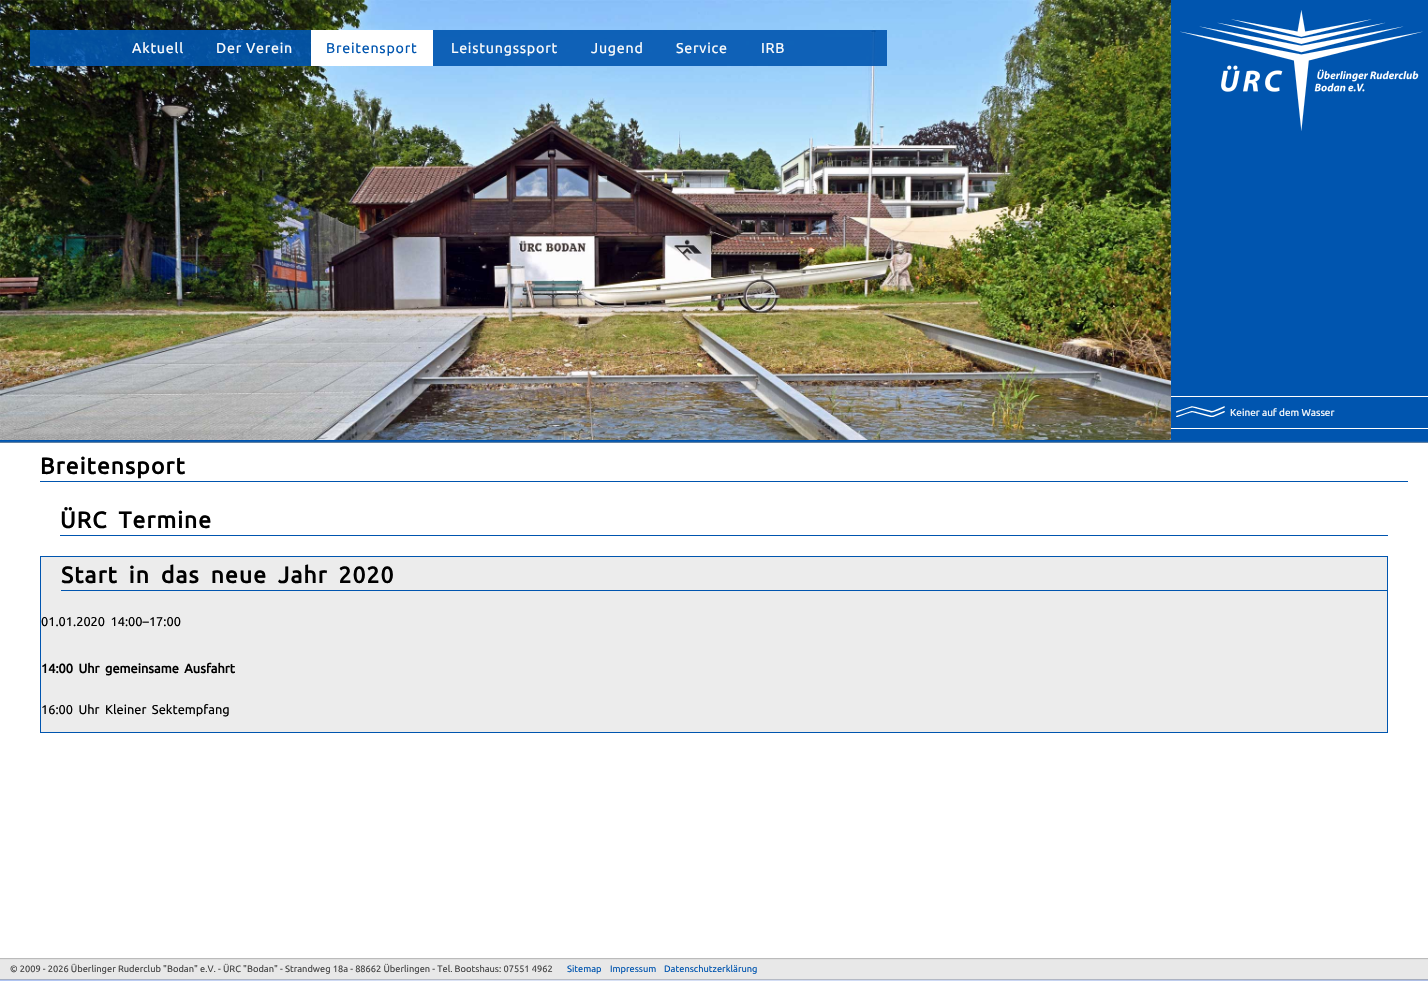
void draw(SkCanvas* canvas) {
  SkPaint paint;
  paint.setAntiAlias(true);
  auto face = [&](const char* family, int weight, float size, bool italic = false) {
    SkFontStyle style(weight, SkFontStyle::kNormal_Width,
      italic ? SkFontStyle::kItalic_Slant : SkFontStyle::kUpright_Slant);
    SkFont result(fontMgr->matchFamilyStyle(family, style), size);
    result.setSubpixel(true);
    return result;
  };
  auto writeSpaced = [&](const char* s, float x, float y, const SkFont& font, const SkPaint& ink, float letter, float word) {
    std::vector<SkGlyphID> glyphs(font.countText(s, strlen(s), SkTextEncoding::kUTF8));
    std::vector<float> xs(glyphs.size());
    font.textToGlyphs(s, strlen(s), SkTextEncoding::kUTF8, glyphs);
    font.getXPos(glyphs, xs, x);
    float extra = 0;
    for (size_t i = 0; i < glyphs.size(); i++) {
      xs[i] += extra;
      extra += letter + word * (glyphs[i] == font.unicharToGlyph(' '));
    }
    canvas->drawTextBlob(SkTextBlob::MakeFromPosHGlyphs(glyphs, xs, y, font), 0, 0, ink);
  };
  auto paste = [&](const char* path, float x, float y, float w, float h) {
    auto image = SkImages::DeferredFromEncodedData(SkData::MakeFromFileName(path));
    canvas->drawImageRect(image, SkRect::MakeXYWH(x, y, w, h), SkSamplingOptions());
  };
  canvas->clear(0xffffffff);
  {
    const SkColor colors[] = {0xffb0c7fc, 0xffe4ecff, 0xffd4e1ff, 0xffafc1ec};
    const float stops[] = {0, 0.33f, 0.67f, 1};
    const SkPoint ends[] = {{0, 490}, {1428, 489}};
    paint.setShader(SkGradientShader::MakeLinear(ends, colors, stops, 4, SkTileMode::kClamp));
    paint.setAlpha(255);
  }
  canvas->drawRect(SkRect::MakeXYWH(0, 979, 1428, 2), paint);
  paint.setShader(nullptr);
  paint.setColor(0xff0055af);
  canvas->drawRect(SkRect::MakeXYWH(0, 0, 1428, 443), paint);
  paste("img/1.png", 0, 0, 1171, 440);
  paste("img/2.png", 1180, 10, 243, 121);
  {
    const struct { float x, y, w, h; SkColor color; } items[] = {
      {30, 30, 857, 36, 0xe60055af},
      {311, 30, 122, 36, 0xffffffff},
      {1171, 396, 257, 1, 0xffffffff},
      {1171, 428, 257, 1, 0xffffffff},
    };
    for (auto [x, y, w, h, color] : items) {
      paint.setColor(color);
      canvas->drawRect(SkRect::MakeXYWH(x, y, w, h), paint);
    }
  }
  paste("img/3.png", 1176, 406, 49, 11);
  paint.setColor(0x999c9c9c);
  paint.setMaskFilter(SkMaskFilter::MakeBlur(kNormal_SkBlurStyle, 0.5f));
  canvas->drawRect(SkRect::MakeXYWH(-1, 957, 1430, 23), paint);
  paint.setMaskFilter(nullptr);
  paint.setColor(0xffe8e8e8);
  canvas->drawRect(SkRect::MakeXYWH(0, 958, 1428, 21), paint);
  paint.setColor(0x999c9c9c);
  paint.setMaskFilter(SkMaskFilter::MakeBlur(kNormal_SkBlurStyle, 0.5f));
  canvas->drawRect(SkRect::MakeXYWH(-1, 442, 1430, 517), paint);
  paint.setMaskFilter(nullptr);
  {
    const struct { float x, y, w, h; SkColor color; } items[] = {
      {0, 443, 1428, 515, 0xffffffff},
      {40, 481, 1368, 1, 0xff0055af},
      {60, 535, 1328, 1, 0xff0055af},
    };
    for (auto [x, y, w, h, color] : items) {
      paint.setColor(color);
      canvas->drawRect(SkRect::MakeXYWH(x, y, w, h), paint);
    }
  }
  paint.setColor(0xffececec);
  canvas->drawRect(SkRect::MakeXYWH(40.5f, 556.5f, 1347, 176), paint);
  paint.setStroke(true);
  paint.setStrokeWidth(1);
  paint.setColor(0xff0055af);
  canvas->drawRect(SkRect::MakeXYWH(40.5f, 556.5f, 1347, 176), paint);
  paint.setStroke(false);
  canvas->drawRect(SkRect::MakeXYWH(61, 590, 1326, 1), paint);
  auto f0 = face("Ubuntu", 400, 14.25f);
  paint.setColor(0xfffcfcfc);
  writeSpaced("Aktuell", 132, 53, f0, paint, 0.75f, 0);
  writeSpaced("Der Verein", 216, 53, f0, paint, 0.75f, 0);
  paint.setColor(0xff0055af);
  writeSpaced("Breitensport", 326, 53, f0, paint, 0.75f, 0);
  paint.setColor(0xfffcfcfc);
  {
    const struct { const char* s; float x, y; } items[] = {
      {"Leistungssport", 451, 53},
      {"Jugend", 591, 53},
      {"Service", 676, 53},
      {"IRB", 761, 53},
    };
    for (auto [s, x, y] : items) {
      writeSpaced(s, x, y, f0, paint, 0.75f, 0);
    }
  }
  auto f1 = face("Ubuntu", 400, 10);
  canvas->drawString("Keiner auf dem Wasser", 1230, 416, f1, paint);
  auto f2 = face("Ubuntu", 700, 22.8f);
  paint.setColor(0xff000000);
  writeSpaced("Breitensport", 40, 474, f2, paint, 1.15f, 0);
  writeSpaced("ÜRC Termine", 60, 528, f2, paint, 1.15f, 4.5f);
  writeSpaced("Start in das neue Jahr 2020", 61, 583, f2, paint, 1.15f, 4.5f);
  auto f3 = face("Ubuntu", 400, 12.8f);
  writeSpaced("01.01.2020 14:00–17:00", 41, 626, f3, paint, 0, 2.5f);
  auto f4 = face("Ubuntu", 700, 12.8f);
  writeSpaced("14:00 Uhr gemeinsame Ausfahrt", 41, 673, f4, paint, 0, 2.5f);
  writeSpaced("16:00 Uhr Kleiner Sektempfang", 41, 714, f3, paint, 0, 2.5f);
  auto f5 = face("Ubuntu", 400, 9.28f);
  paint.setColor(0xff474747);
  canvas->drawString("© 2009 - 2026 Überlinger Ruderclub \"Bodan\" e.V. - ÜRC \"Bodan\" - Strandweg 18a - 88662 Überlingen - Tel. Bootshaus: 07551 4962", 10, 972, f5, paint);
  paint.setColor(0xff0055af);
  {
    const struct { const char* s; float x, y; } items[] = {
      {"Sitemap", 567, 972},
      {"Impressum", 610, 972},
      {"Datenschutzerklärung", 664, 972},
    };
    for (auto [s, x, y] : items) {
      canvas->drawString(s, x, y, f5, paint);
    }
  }
}
